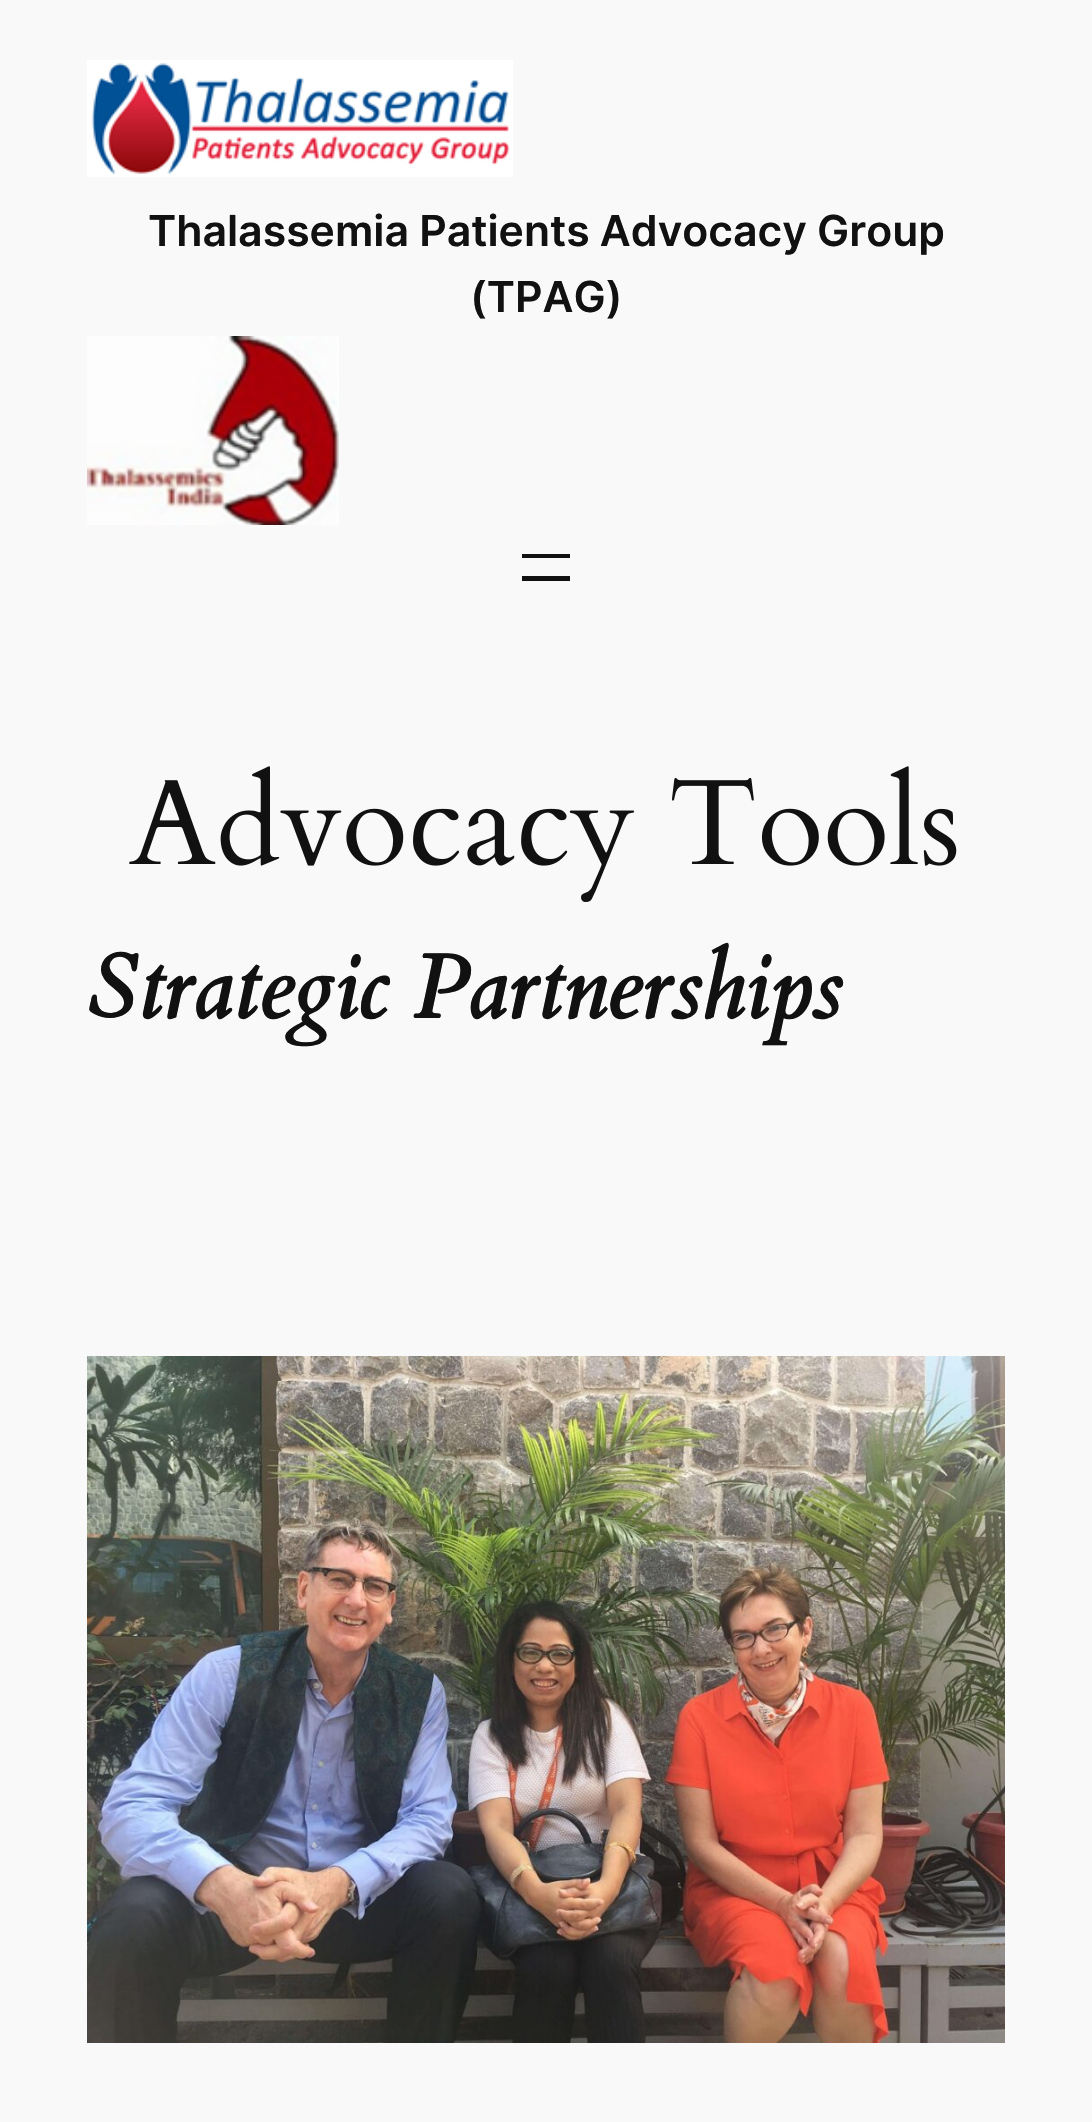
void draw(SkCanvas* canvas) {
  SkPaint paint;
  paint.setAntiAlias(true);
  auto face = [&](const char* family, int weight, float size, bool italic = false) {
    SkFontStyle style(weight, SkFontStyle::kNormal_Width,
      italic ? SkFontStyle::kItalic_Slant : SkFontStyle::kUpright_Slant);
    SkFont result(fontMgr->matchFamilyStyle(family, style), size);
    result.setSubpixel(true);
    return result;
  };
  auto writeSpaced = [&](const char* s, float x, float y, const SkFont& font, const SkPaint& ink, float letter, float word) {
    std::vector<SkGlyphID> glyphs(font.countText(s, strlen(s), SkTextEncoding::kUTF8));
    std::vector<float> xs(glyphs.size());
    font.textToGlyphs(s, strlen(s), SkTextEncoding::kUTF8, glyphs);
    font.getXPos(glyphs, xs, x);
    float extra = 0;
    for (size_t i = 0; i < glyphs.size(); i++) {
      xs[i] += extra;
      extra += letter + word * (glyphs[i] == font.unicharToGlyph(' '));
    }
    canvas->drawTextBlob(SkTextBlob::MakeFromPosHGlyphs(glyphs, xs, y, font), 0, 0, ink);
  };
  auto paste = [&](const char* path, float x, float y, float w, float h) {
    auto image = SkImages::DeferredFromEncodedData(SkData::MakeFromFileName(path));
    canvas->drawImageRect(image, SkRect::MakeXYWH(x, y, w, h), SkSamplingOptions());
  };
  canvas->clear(0xfff9f9f9);
  paste("img/1.png", 87, 60, 426, 117);
  paste("img/2.png", 87, 336, 252, 189);
  paint.setColor(0xff111111);
  canvas->drawRect(SkRect::MakeXYWH(522, 554, 48, 4), paint);
  canvas->drawRect(SkRect::MakeXYWH(522, 576, 48, 5), paint);
  paste("img/3.png", 129, 766, 828, 136);
  paste("img/4.png", 87, 1356, 918, 687);
  auto f0 = face("Inter", 600, 42.75f);
  writeSpaced("Thalassemia Patients Advocacy Group", 148, 246, f0, paint, 0, -0.5f);
  canvas->drawString("(TPAG)", 470, 312, f0, paint);
  auto f1 = face("Cardo", 700, 90.25f, true);
  canvas->drawString("Strategic Partnerships", 87, 1018, f1, paint);
}
